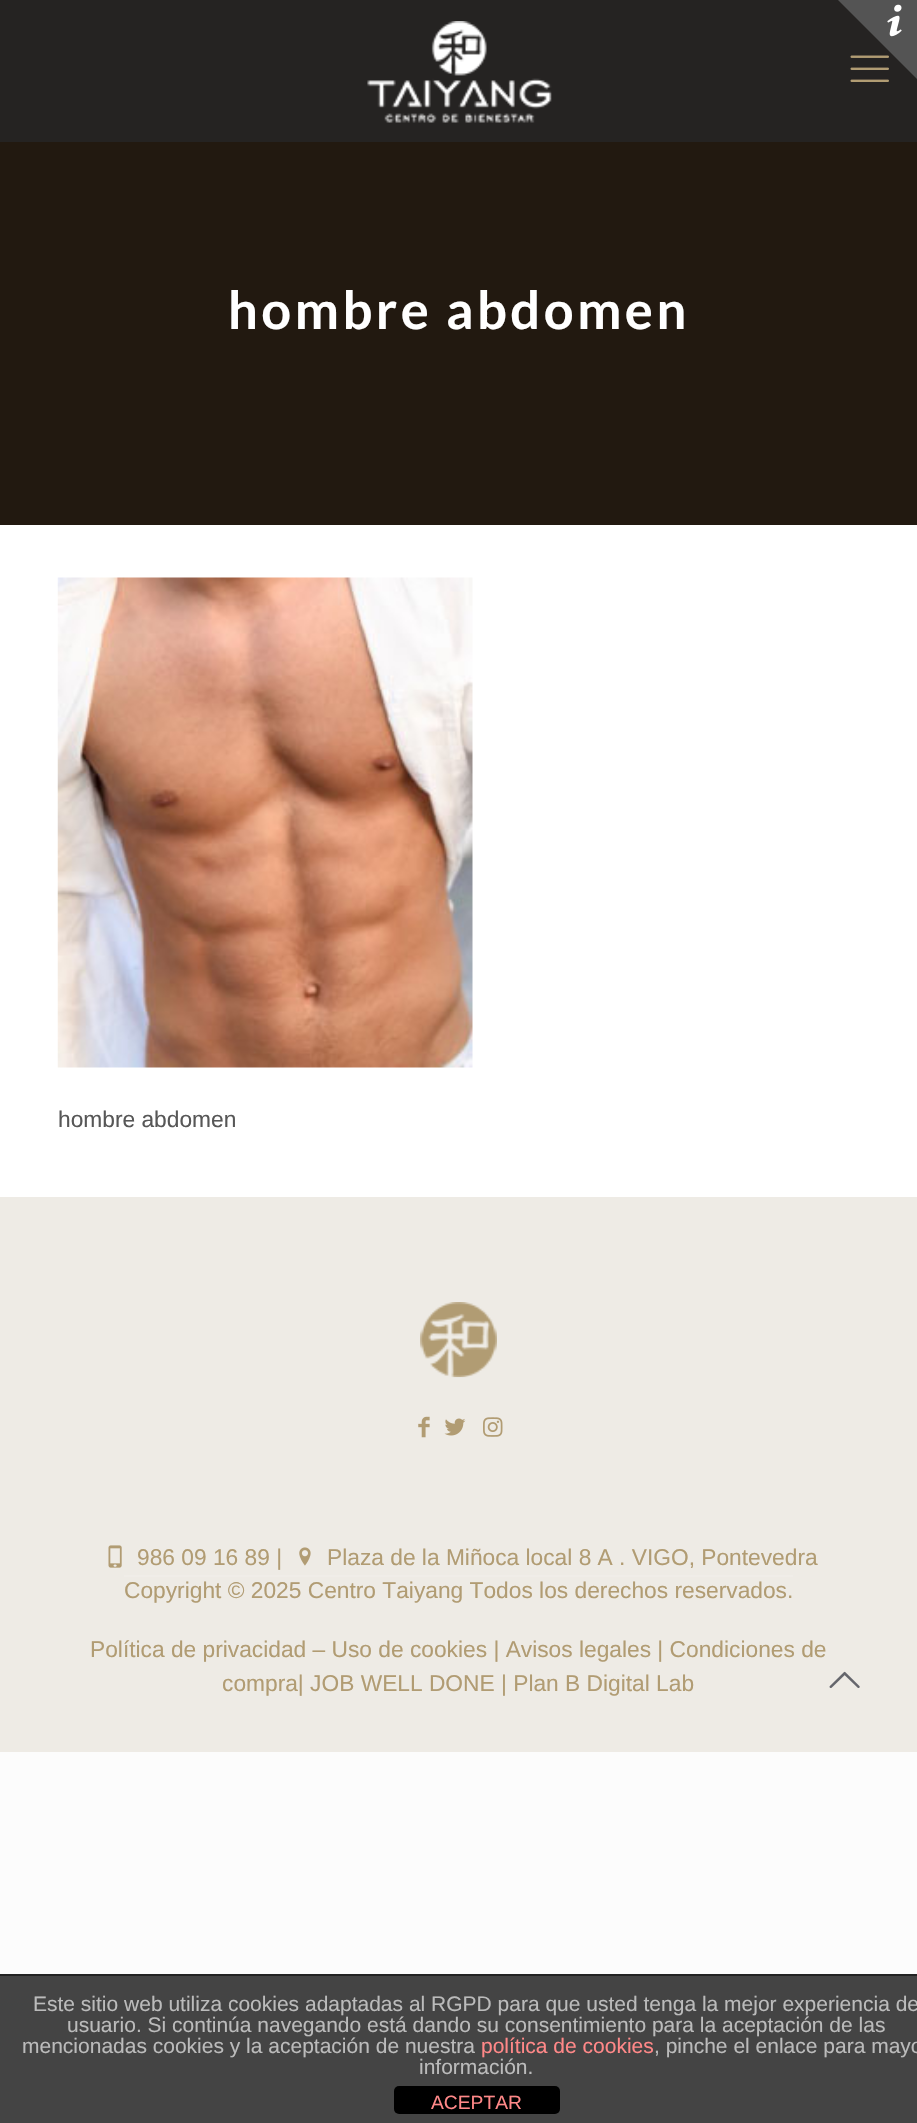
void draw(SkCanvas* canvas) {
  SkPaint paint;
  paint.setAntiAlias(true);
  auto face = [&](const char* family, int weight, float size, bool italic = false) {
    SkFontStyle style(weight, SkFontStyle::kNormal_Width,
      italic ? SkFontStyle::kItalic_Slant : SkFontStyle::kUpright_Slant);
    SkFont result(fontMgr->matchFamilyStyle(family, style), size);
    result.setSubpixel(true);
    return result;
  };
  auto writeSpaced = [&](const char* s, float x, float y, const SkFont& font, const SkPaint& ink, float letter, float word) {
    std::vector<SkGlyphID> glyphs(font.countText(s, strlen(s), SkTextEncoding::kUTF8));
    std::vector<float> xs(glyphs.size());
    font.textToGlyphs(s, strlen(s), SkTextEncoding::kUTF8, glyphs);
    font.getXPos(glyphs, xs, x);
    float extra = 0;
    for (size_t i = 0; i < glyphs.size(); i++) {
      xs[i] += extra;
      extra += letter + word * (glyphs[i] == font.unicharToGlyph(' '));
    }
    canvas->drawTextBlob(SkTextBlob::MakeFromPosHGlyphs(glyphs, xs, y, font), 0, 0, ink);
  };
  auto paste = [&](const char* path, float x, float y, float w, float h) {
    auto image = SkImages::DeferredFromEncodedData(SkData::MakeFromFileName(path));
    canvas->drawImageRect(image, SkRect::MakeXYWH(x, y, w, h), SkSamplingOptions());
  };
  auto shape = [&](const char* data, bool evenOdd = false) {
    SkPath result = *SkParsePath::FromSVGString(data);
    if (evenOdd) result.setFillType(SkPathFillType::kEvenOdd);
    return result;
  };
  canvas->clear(0xfffcfcfc);
  paint.setColor(0xff252322);
  canvas->drawRect(SkRect::MakeXYWH(0, 0, 917, 142), paint);
  paste("img/3.png", 850, 55, 39, 27);
  paint.setColor(0xff545454);
  canvas->drawPath(shape("M917 0V79L838 0Z"), paint);
  paste("img/1.png", 887, 4, 15, 33);
  paint.setColor(0xffffffff);
  canvas->drawRect(SkRect::MakeXYWH(0, 525, 917, 672), paint);
  paint.setColor(0xff221910);
  canvas->drawRect(SkRect::MakeXYWH(0, 142, 917, 383), paint);
  paste("img/2.png", 367, 21, 185, 102);
  paste("img/4.png", 57, 577, 416, 491);
  paint.setColor(0xffeeebe5);
  canvas->drawRect(SkRect::MakeXYWH(0, 1197, 917, 555), paint);
  paste("img/5.png", 420, 1302, 77, 76);
  paste("img/6.png", 418, 1416, 12, 22);
  paste("img/7.png", 444, 1418, 22, 18);
  paste("img/8.png", 483, 1417, 20, 20);
  paste("img/9.png", 108, 1545, 14, 23);
  paste("img/10.png", 299, 1547, 12, 19);
  paint.setColor(0xfff0ede8);
  canvas->drawRect(SkRect::MakeXYWH(124, 1575, 669, 2), paint);
  paste("img/11.png", 829, 1671, 31, 17);
  paint.setColor(0xff444444);
  canvas->drawRect(SkRect::MakeXYWH(0, 1976, 917, 147), paint);
  paint.setColor(0xff222222);
  canvas->drawRect(SkRect::MakeXYWH(0, 1974, 917, 2), paint);
  paint.setColor(0xff000000);
  canvas->drawRoundRect(SkRect::MakeXYWH(394, 2086, 166, 28), 5, 5, paint);
  auto f0 = face("Lato", 700, 52.5f);
  paint.setColor(0xffffffff);
  writeSpaced("hombre abdomen", 228, 329, f0, paint, 3.5f, 0);
  auto f1 = face("Liberation Sans", 400, 22.75f);
  paint.setColor(0xff575757);
  canvas->drawString("hombre abdomen", 58, 1127, f1, paint);
  paint.setColor(0xffb19c73);
  {
    const struct { const char* s; float x, y; } items[] = {
      {"986 09 16 89 |", 137, 1565},
      {"Plaza de la Miñoca local 8 A . VIGO, Pontevedra", 327, 1565},
      {"Copyright © 2025 Centro Taiyang Todos los derechos reservados.", 124, 1598},
      {"Política de privacidad – Uso de cookies | Avisos legales | Condiciones de", 90, 1657},
      {"compra| JOB WELL DONE | Plan B Digital Lab", 222, 1691},
    };
    for (auto [s, x, y] : items) {
      canvas->drawString(s, x, y, f1, paint);
    }
  }
  auto f2 = face("Liberation Sans", 400, 21);
  paint.setColor(0xffbbbbbb);
  {
    const struct { const char* s; float x, y; } items[] = {
      {"Este sitio web utiliza cookies adaptadas al RGPD para que usted tenga la mejor experiencia de", 33, 2011},
      {"usuario. Si continúa navegando está dando su consentimiento para la aceptación de las", 67, 2032},
      {"mencionadas cookies y la aceptación de nuestra", 22, 2053},
    };
    for (auto [s, x, y] : items) {
      canvas->drawString(s, x, y, f2, paint);
    }
  }
  paint.setColor(0xffff8888);
  canvas->drawString("política de cookies", 481, 2053, f2, paint);
  paint.setColor(0xffbbbbbb);
  canvas->drawString(", pinche el enlace para mayo", 654, 2053, f2, paint);
  canvas->drawString("información.", 419, 2074, f2, paint);
  auto f3 = face("Liberation Sans", 400, 19.25f);
  paint.setColor(0xffff8888);
  canvas->drawString("ACEPTAR", 431, 2109, f3, paint);
}
